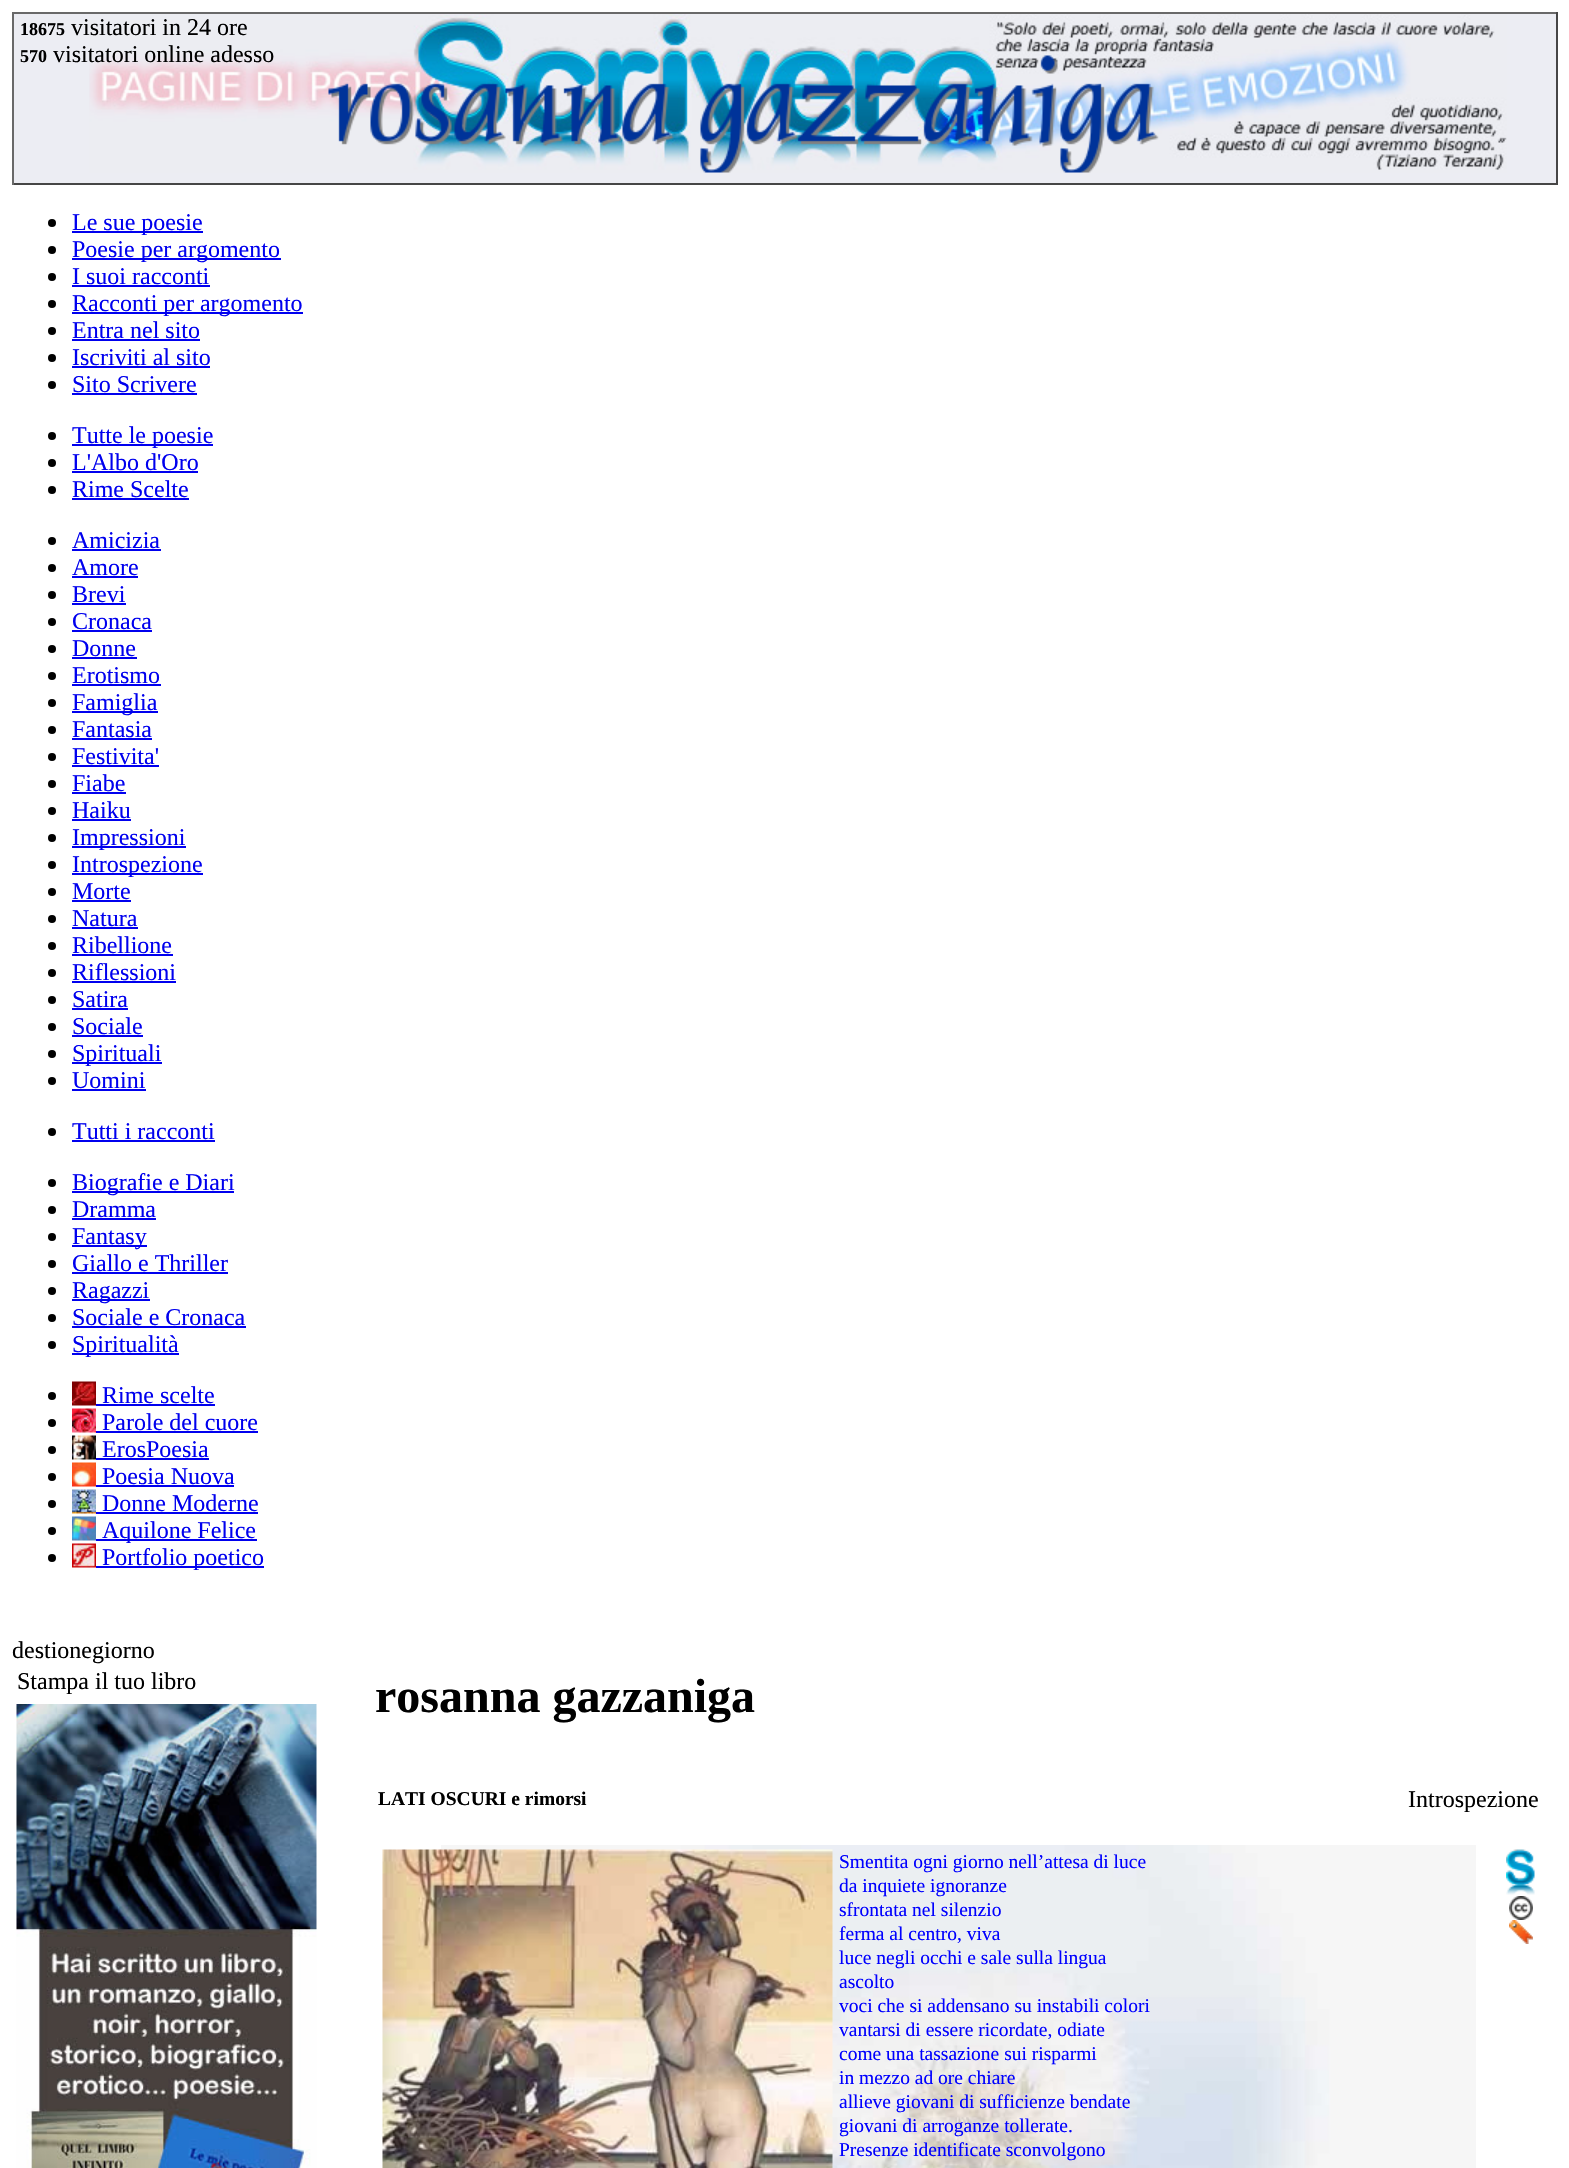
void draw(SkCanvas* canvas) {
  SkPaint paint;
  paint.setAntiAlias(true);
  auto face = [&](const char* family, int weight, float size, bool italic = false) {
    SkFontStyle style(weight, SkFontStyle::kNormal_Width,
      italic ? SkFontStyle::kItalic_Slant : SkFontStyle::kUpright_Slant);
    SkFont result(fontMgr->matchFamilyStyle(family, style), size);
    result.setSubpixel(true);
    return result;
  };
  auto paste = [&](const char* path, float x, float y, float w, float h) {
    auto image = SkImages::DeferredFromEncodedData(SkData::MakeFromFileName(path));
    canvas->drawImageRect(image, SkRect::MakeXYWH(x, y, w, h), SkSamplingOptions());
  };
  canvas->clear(0xffffffff);
  paint.setColor(0xffecedf3);
  canvas->drawRect(SkRect::MakeXYWH(14, 14, 1542, 169), paint);
  paste("img/1.png", 89, 14, 1418, 159);
  {
    const struct { float x, y, w, h; SkColor color; } items[] = {
      {12, 12, 1545, 2, 0xff696969},
      {1556, 12, 2, 173, 0xff464646},
      {12, 183, 1545, 2, 0xff464646},
      {12, 12, 2, 173, 0xff696969},
    };
    for (auto [x, y, w, h, color] : items) {
      paint.setColor(color);
      canvas->drawRect(SkRect::MakeXYWH(x, y, w, h), paint);
    }
  }
  paint.setColor(0xff000000);
  canvas->drawCircle(52, 223, 4, paint);
  paint.setColor(0xff0000ee);
  canvas->drawRect(SkRect::MakeXYWH(72, 231, 131, 2), paint);
  paint.setColor(0xff000000);
  canvas->drawCircle(52, 250, 4, paint);
  paint.setColor(0xff0000ee);
  canvas->drawRect(SkRect::MakeXYWH(72, 258, 209, 2), paint);
  paint.setColor(0xff000000);
  canvas->drawCircle(52, 277, 4, paint);
  paint.setColor(0xff0000ee);
  canvas->drawRect(SkRect::MakeXYWH(72, 285, 138, 2), paint);
  paint.setColor(0xff000000);
  canvas->drawCircle(52, 304, 4, paint);
  paint.setColor(0xff0000ee);
  canvas->drawRect(SkRect::MakeXYWH(72, 312, 231, 2), paint);
  paint.setColor(0xff000000);
  canvas->drawCircle(52, 331, 4, paint);
  paint.setColor(0xff0000ee);
  canvas->drawRect(SkRect::MakeXYWH(72, 339, 128, 2), paint);
  paint.setColor(0xff000000);
  canvas->drawCircle(52, 358, 4, paint);
  paint.setColor(0xff0000ee);
  canvas->drawRect(SkRect::MakeXYWH(72, 366, 138, 2), paint);
  paint.setColor(0xff000000);
  canvas->drawCircle(52, 385, 4, paint);
  paint.setColor(0xff0000ee);
  canvas->drawRect(SkRect::MakeXYWH(72, 393, 125, 2), paint);
  paint.setColor(0xff000000);
  canvas->drawCircle(52, 436, 4, paint);
  paint.setColor(0xff0000ee);
  canvas->drawRect(SkRect::MakeXYWH(72, 444, 141, 2), paint);
  paint.setColor(0xff000000);
  canvas->drawCircle(52, 463, 4, paint);
  paint.setColor(0xff0000ee);
  canvas->drawRect(SkRect::MakeXYWH(72, 471, 126, 2), paint);
  paint.setColor(0xff000000);
  canvas->drawCircle(52, 490, 4, paint);
  paint.setColor(0xff0000ee);
  canvas->drawRect(SkRect::MakeXYWH(72, 498, 117, 2), paint);
  paint.setColor(0xff000000);
  canvas->drawCircle(52, 541, 4, paint);
  paint.setColor(0xff0000ee);
  canvas->drawRect(SkRect::MakeXYWH(72, 549, 89, 2), paint);
  paint.setColor(0xff000000);
  canvas->drawCircle(52, 568, 4, paint);
  paint.setColor(0xff0000ee);
  canvas->drawRect(SkRect::MakeXYWH(72, 576, 66, 2), paint);
  paint.setColor(0xff000000);
  canvas->drawCircle(52, 595, 4, paint);
  paint.setColor(0xff0000ee);
  canvas->drawRect(SkRect::MakeXYWH(72, 603, 54, 2), paint);
  paint.setColor(0xff000000);
  canvas->drawCircle(52, 622, 4, paint);
  paint.setColor(0xff0000ee);
  canvas->drawRect(SkRect::MakeXYWH(72, 630, 80, 2), paint);
  paint.setColor(0xff000000);
  canvas->drawCircle(52, 649, 4, paint);
  paint.setColor(0xff0000ee);
  canvas->drawRect(SkRect::MakeXYWH(72, 657, 65, 2), paint);
  paint.setColor(0xff000000);
  canvas->drawCircle(52, 676, 4, paint);
  paint.setColor(0xff0000ee);
  canvas->drawRect(SkRect::MakeXYWH(72, 684, 89, 2), paint);
  paint.setColor(0xff000000);
  canvas->drawCircle(52, 703, 4, paint);
  paint.setColor(0xff0000ee);
  canvas->drawRect(SkRect::MakeXYWH(72, 711, 86, 2), paint);
  paint.setColor(0xff000000);
  canvas->drawCircle(52, 730, 4, paint);
  paint.setColor(0xff0000ee);
  canvas->drawRect(SkRect::MakeXYWH(72, 738, 80, 2), paint);
  paint.setColor(0xff000000);
  canvas->drawCircle(52, 757, 4, paint);
  paint.setColor(0xff0000ee);
  canvas->drawRect(SkRect::MakeXYWH(72, 765, 87, 2), paint);
  paint.setColor(0xff000000);
  canvas->drawCircle(52, 784, 4, paint);
  paint.setColor(0xff0000ee);
  canvas->drawRect(SkRect::MakeXYWH(72, 792, 54, 2), paint);
  paint.setColor(0xff000000);
  canvas->drawCircle(52, 811, 4, paint);
  paint.setColor(0xff0000ee);
  canvas->drawRect(SkRect::MakeXYWH(72, 819, 59, 2), paint);
  paint.setColor(0xff000000);
  canvas->drawCircle(52, 838, 4, paint);
  paint.setColor(0xff0000ee);
  canvas->drawRect(SkRect::MakeXYWH(72, 846, 114, 2), paint);
  paint.setColor(0xff000000);
  canvas->drawCircle(52, 865, 4, paint);
  paint.setColor(0xff0000ee);
  canvas->drawRect(SkRect::MakeXYWH(72, 873, 131, 2), paint);
  paint.setColor(0xff000000);
  canvas->drawCircle(52, 892, 4, paint);
  paint.setColor(0xff0000ee);
  canvas->drawRect(SkRect::MakeXYWH(72, 900, 59, 2), paint);
  paint.setColor(0xff000000);
  canvas->drawCircle(52, 919, 4, paint);
  paint.setColor(0xff0000ee);
  canvas->drawRect(SkRect::MakeXYWH(72, 927, 66, 2), paint);
  paint.setColor(0xff000000);
  canvas->drawCircle(52, 946, 4, paint);
  paint.setColor(0xff0000ee);
  canvas->drawRect(SkRect::MakeXYWH(72, 954, 101, 2), paint);
  paint.setColor(0xff000000);
  canvas->drawCircle(52, 973, 4, paint);
  paint.setColor(0xff0000ee);
  canvas->drawRect(SkRect::MakeXYWH(72, 981, 104, 2), paint);
  paint.setColor(0xff000000);
  canvas->drawCircle(52, 1000, 4, paint);
  paint.setColor(0xff0000ee);
  canvas->drawRect(SkRect::MakeXYWH(72, 1008, 56, 2), paint);
  paint.setColor(0xff000000);
  canvas->drawCircle(52, 1027, 4, paint);
  paint.setColor(0xff0000ee);
  canvas->drawRect(SkRect::MakeXYWH(72, 1035, 71, 2), paint);
  paint.setColor(0xff000000);
  canvas->drawCircle(52, 1054, 4, paint);
  paint.setColor(0xff0000ee);
  canvas->drawRect(SkRect::MakeXYWH(72, 1062, 90, 2), paint);
  paint.setColor(0xff000000);
  canvas->drawCircle(52, 1081, 4, paint);
  paint.setColor(0xff0000ee);
  canvas->drawRect(SkRect::MakeXYWH(72, 1089, 74, 2), paint);
  paint.setColor(0xff000000);
  canvas->drawCircle(52, 1132, 4, paint);
  paint.setColor(0xff0000ee);
  canvas->drawRect(SkRect::MakeXYWH(72, 1140, 143, 2), paint);
  paint.setColor(0xff000000);
  canvas->drawCircle(52, 1183, 4, paint);
  paint.setColor(0xff0000ee);
  canvas->drawRect(SkRect::MakeXYWH(72, 1191, 162, 2), paint);
  paint.setColor(0xff000000);
  canvas->drawCircle(52, 1210, 4, paint);
  paint.setColor(0xff0000ee);
  canvas->drawRect(SkRect::MakeXYWH(72, 1218, 84, 2), paint);
  paint.setColor(0xff000000);
  canvas->drawCircle(52, 1237, 4, paint);
  paint.setColor(0xff0000ee);
  canvas->drawRect(SkRect::MakeXYWH(72, 1245, 75, 2), paint);
  paint.setColor(0xff000000);
  canvas->drawCircle(52, 1264, 4, paint);
  paint.setColor(0xff0000ee);
  canvas->drawRect(SkRect::MakeXYWH(72, 1272, 156, 2), paint);
  paint.setColor(0xff000000);
  canvas->drawCircle(52, 1291, 4, paint);
  paint.setColor(0xff0000ee);
  canvas->drawRect(SkRect::MakeXYWH(72, 1299, 78, 2), paint);
  paint.setColor(0xff000000);
  canvas->drawCircle(52, 1318, 4, paint);
  paint.setColor(0xff0000ee);
  canvas->drawRect(SkRect::MakeXYWH(72, 1326, 174, 2), paint);
  paint.setColor(0xff000000);
  canvas->drawCircle(52, 1345, 4, paint);
  paint.setColor(0xff0000ee);
  canvas->drawRect(SkRect::MakeXYWH(72, 1353, 107, 2), paint);
  paint.setColor(0xff000000);
  canvas->drawCircle(52, 1396, 4, paint);
  paste("img/2.png", 72, 1381, 24, 25);
  paint.setColor(0xff0000ee);
  canvas->drawRect(SkRect::MakeXYWH(96, 1404, 119, 2), paint);
  paint.setColor(0xff000000);
  canvas->drawCircle(52, 1423, 4, paint);
  paste("img/3.png", 72, 1408, 24, 25);
  paint.setColor(0xff0000ee);
  canvas->drawRect(SkRect::MakeXYWH(96, 1431, 162, 2), paint);
  paint.setColor(0xff000000);
  canvas->drawCircle(52, 1450, 4, paint);
  paste("img/4.png", 72, 1435, 24, 25);
  paint.setColor(0xff0000ee);
  canvas->drawRect(SkRect::MakeXYWH(96, 1458, 113, 2), paint);
  paint.setColor(0xff000000);
  canvas->drawCircle(52, 1477, 4, paint);
  paste("img/5.png", 72, 1462, 24, 25);
  paint.setColor(0xff0000ee);
  canvas->drawRect(SkRect::MakeXYWH(96, 1485, 138, 2), paint);
  paint.setColor(0xff000000);
  canvas->drawCircle(52, 1504, 4, paint);
  paste("img/6.png", 72, 1489, 24, 25);
  paint.setColor(0xff0000ee);
  canvas->drawRect(SkRect::MakeXYWH(96, 1512, 162, 2), paint);
  paint.setColor(0xff000000);
  canvas->drawCircle(52, 1531, 4, paint);
  paste("img/7.png", 72, 1516, 24, 25);
  paint.setColor(0xff0000ee);
  canvas->drawRect(SkRect::MakeXYWH(96, 1539, 161, 2), paint);
  paint.setColor(0xff000000);
  canvas->drawCircle(52, 1558, 4, paint);
  paste("img/8.png", 72, 1543, 24, 25);
  paint.setColor(0xff0000ee);
  canvas->drawRect(SkRect::MakeXYWH(96, 1566, 168, 2), paint);
  paste("img/9.png", 16, 1704, 301, 464);
  paste("img/10.png", 441, 1845, 1035, 323);
  paste("img/11.png", 382, 1849, 451, 319);
  paste("img/12.png", 1506, 1849, 29, 46);
  paste("img/13.png", 1509, 1896, 24, 24);
  paste("img/14.png", 1509, 1920, 24, 24);
  auto f0 = face("Liberation Serif", 700, 18);
  paint.setColor(0xff000000);
  canvas->drawString("18675", 20, 35, f0, paint);
  auto f1 = face("Liberation Serif", 400, 24);
  canvas->drawString("visitatori in 24 ore", 71, 35, f1, paint);
  canvas->drawString("570", 20, 62, f0, paint);
  canvas->drawString("visitatori online adesso", 53, 62, f1, paint);
  paint.setColor(0xff0000ee);
  {
    const struct { const char* s; float x, y; } items[] = {
      {"Le sue poesie", 72, 230},
      {"Poesie per argomento", 72, 257},
      {"I suoi racconti", 72, 284},
      {"Racconti per argomento", 72, 311},
      {"Entra nel sito", 72, 338},
      {"Iscriviti al sito", 72, 365},
      {"Sito Scrivere", 72, 392},
      {"Tutte le poesie", 72, 443},
      {"L'Albo d'Oro", 72, 470},
      {"Rime Scelte", 72, 497},
      {"Amicizia", 72, 548},
      {"Amore", 72, 575},
      {"Brevi", 72, 602},
      {"Cronaca", 72, 629},
      {"Donne", 72, 656},
      {"Erotismo", 72, 683},
      {"Famiglia", 72, 710},
      {"Fantasia", 72, 737},
      {"Festivita'", 72, 764},
      {"Fiabe", 72, 791},
      {"Haiku", 72, 818},
      {"Impressioni", 72, 845},
      {"Introspezione", 72, 872},
      {"Morte", 72, 899},
      {"Natura", 72, 926},
      {"Ribellione", 72, 953},
      {"Riflessioni", 72, 980},
      {"Satira", 72, 1007},
      {"Sociale", 72, 1034},
      {"Spirituali", 72, 1061},
      {"Uomini", 72, 1088},
      {"Tutti i racconti", 72, 1139},
      {"Biografie e Diari", 72, 1190},
      {"Dramma", 72, 1217},
      {"Fantasy", 72, 1244},
      {"Giallo e Thriller", 72, 1271},
      {"Ragazzi", 72, 1298},
      {"Sociale e Cronaca", 72, 1325},
      {"Spiritualità", 72, 1352},
      {"Rime scelte", 102, 1403},
      {"Parole del cuore", 102, 1430},
      {"ErosPoesia", 102, 1457},
      {"Poesia Nuova", 102, 1484},
      {"Donne Moderne", 102, 1511},
      {"Aquilone Felice", 102, 1538},
      {"Portfolio poetico", 102, 1565},
    };
    for (auto [s, x, y] : items) {
      canvas->drawString(s, x, y, f1, paint);
    }
  }
  paint.setColor(0xff000000);
  canvas->drawString("destionegiorno", 12, 1658, f1, paint);
  canvas->drawString("Stampa il tuo libro", 17, 1689, f1, paint);
  auto f2 = face("Liberation Serif", 700, 48);
  canvas->drawString("rosanna gazzaniga", 375, 1712, f2, paint);
  auto f3 = face("Liberation Serif", 700, 19.5f);
  canvas->drawString("LATI OSCURI e rimorsi", 378, 1805, f3, paint);
  canvas->drawString("Introspezione", 1408, 1807, f1, paint);
  auto f4 = face("Liberation Serif", 400, 19.5f);
  paint.setColor(0xff0000ff);
  {
    const struct { const char* s; float x, y; } items[] = {
      {"Smentita ogni giorno nell’attesa di luce", 839, 1868},
      {"da inquiete ignoranze", 839, 1892},
      {"sfrontata nel silenzio", 839, 1916},
      {"ferma al centro, viva", 839, 1940},
      {"luce negli occhi e sale sulla lingua", 839, 1964},
      {"ascolto", 839, 1988},
      {"voci che si addensano su instabili colori", 839, 2012},
      {"vantarsi di essere ricordate, odiate", 839, 2036},
      {"come una tassazione sui risparmi", 839, 2060},
      {"in mezzo ad ore chiare", 839, 2084},
      {"allieve giovani di sufficienze bendate", 839, 2108},
      {"giovani di arroganze tollerate.", 839, 2132},
      {"Presenze identificate sconvolgono", 839, 2156},
    };
    for (auto [s, x, y] : items) {
      canvas->drawString(s, x, y, f4, paint);
    }
  }
}
